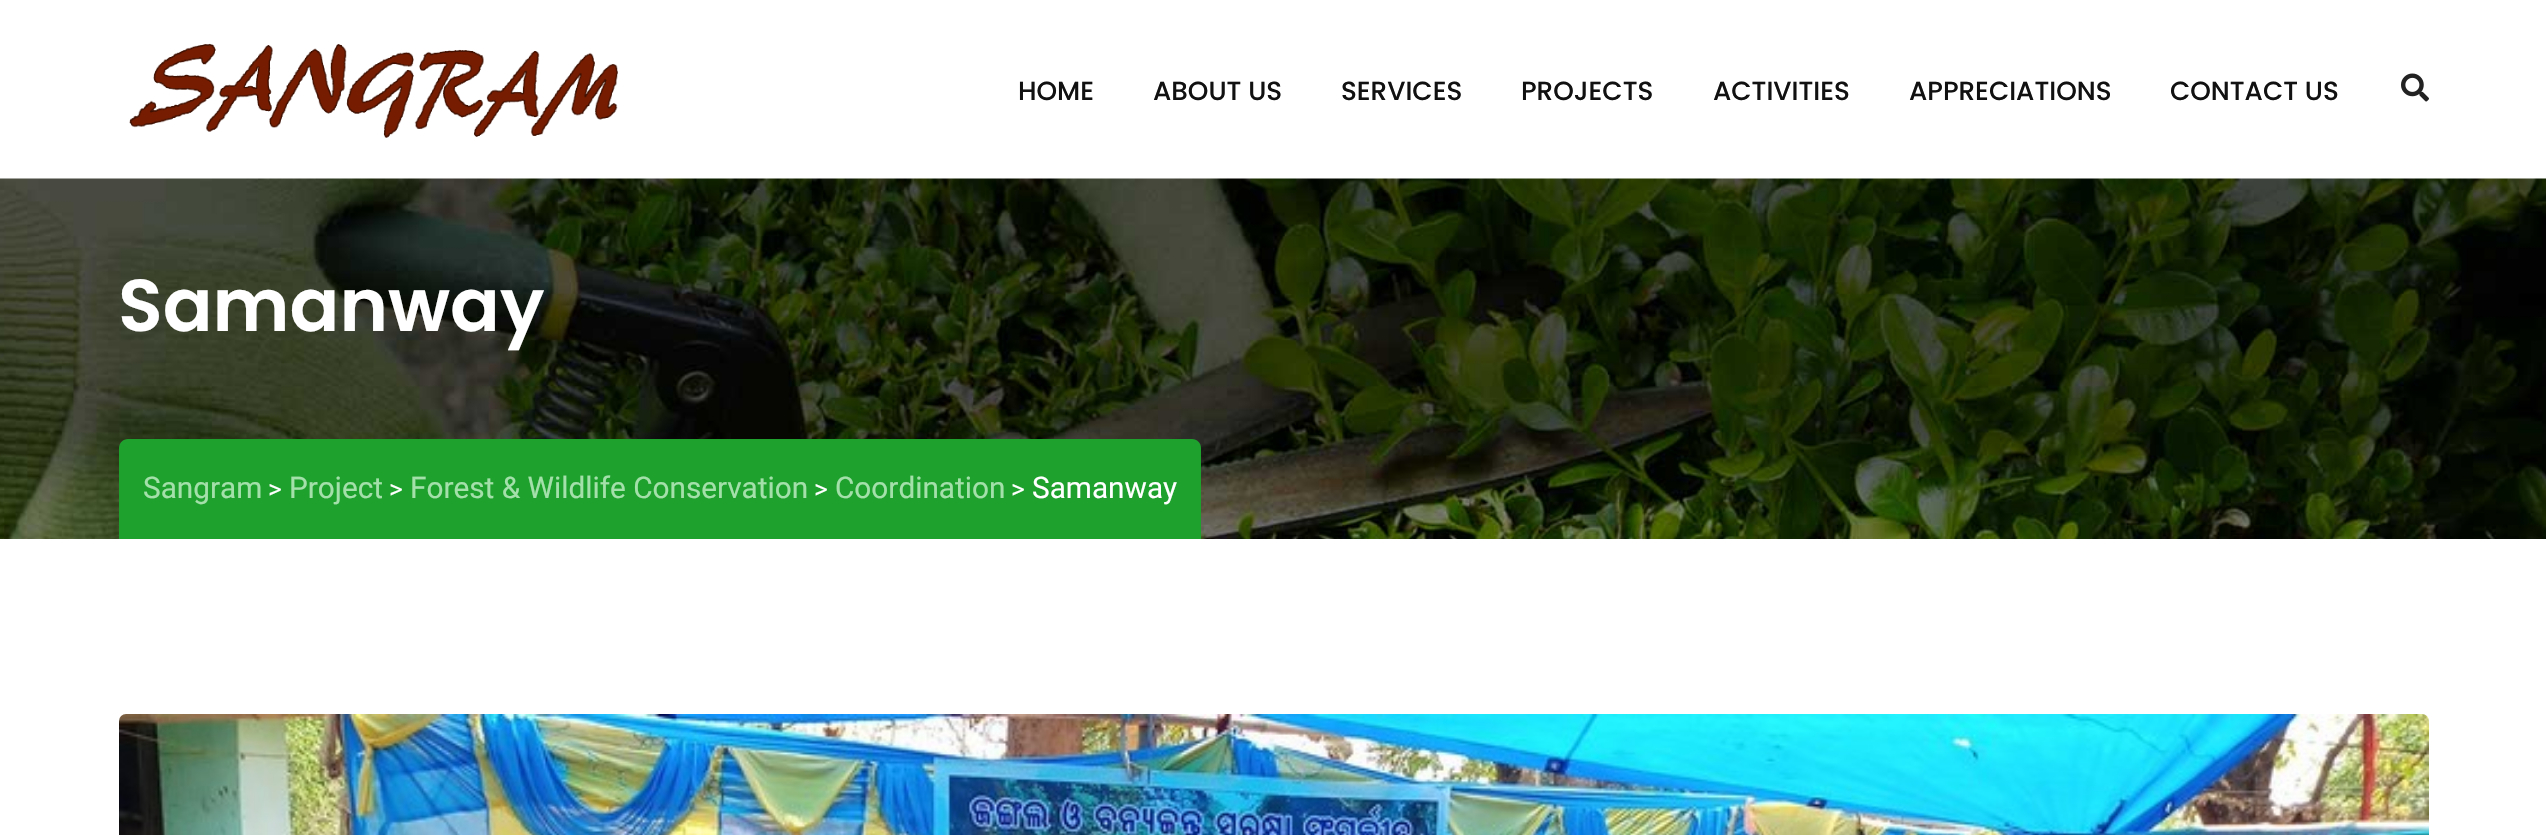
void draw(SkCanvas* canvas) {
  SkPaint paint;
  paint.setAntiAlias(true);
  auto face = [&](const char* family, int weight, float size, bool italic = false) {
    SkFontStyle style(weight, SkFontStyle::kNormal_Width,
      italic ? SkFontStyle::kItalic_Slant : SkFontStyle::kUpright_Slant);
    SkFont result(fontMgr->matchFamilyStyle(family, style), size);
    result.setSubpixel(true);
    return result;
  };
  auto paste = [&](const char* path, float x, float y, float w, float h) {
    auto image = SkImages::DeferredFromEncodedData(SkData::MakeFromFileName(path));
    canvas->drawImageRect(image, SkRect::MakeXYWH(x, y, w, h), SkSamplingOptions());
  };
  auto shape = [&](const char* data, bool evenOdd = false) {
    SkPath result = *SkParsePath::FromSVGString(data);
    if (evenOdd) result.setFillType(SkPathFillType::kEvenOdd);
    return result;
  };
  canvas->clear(0xffffffff);
  paste("img/1.png", 129, 43, 489, 95);
  paste("img/2.png", 2401, 73, 28, 29);
  paste("img/3.png", 0, 178, 2546, 361);
  paint.setColor(0xff1fa12e);
  canvas->drawPath(shape("M128 439H1192C1197 439 1201 443 1201 448V539H119V448C119 443 123 439 128 439Z"), paint);
  paste("img/4.png", 119, 714, 2310, 121);
  auto f0 = face("Poppins", 500, 26.25f);
  paint.setColor(0xff111111);
  {
    const struct { const char* s; float x, y; } items[] = {
      {"HOME", 1018, 100},
      {"ABOUT US", 1153, 100},
      {"SERVICES", 1341, 100},
      {"PROJECTS", 1521, 100},
      {"ACTIVITIES", 1713, 100},
      {"APPRECIATIONS", 1909, 100},
      {"CONTACT US", 2170, 100},
    };
    for (auto [s, x, y] : items) {
      canvas->drawString(s, x, y, f0, paint);
    }
  }
  auto f1 = face("Poppins", 600, 73.5f);
  paint.setColor(0xffffffff);
  canvas->drawString("Samanway", 118, 331, f1, paint);
  auto f2 = face("Roboto", 400, 29.75f);
  paint.setColor(0xffa3e0aa);
  canvas->drawString("Sangram", 143, 498, f2, paint);
  auto f3 = face("Roboto", 400, 26.25f);
  paint.setColor(0xffffffff);
  canvas->drawString(">", 268, 498, f3, paint);
  paint.setColor(0xffa3e0aa);
  canvas->drawString("Project", 289, 498, f2, paint);
  paint.setColor(0xffffffff);
  canvas->drawString(">", 389, 498, f3, paint);
  paint.setColor(0xffa3e0aa);
  canvas->drawString("Forest & Wildlife Conservation", 410, 498, f2, paint);
  paint.setColor(0xffffffff);
  canvas->drawString(">", 814, 498, f3, paint);
  paint.setColor(0xffa3e0aa);
  canvas->drawString("Coordination", 835, 498, f2, paint);
  paint.setColor(0xffffffff);
  canvas->drawString(">", 1011, 498, f3, paint);
  canvas->drawString("Samanway", 1032, 498, f2, paint);
}
